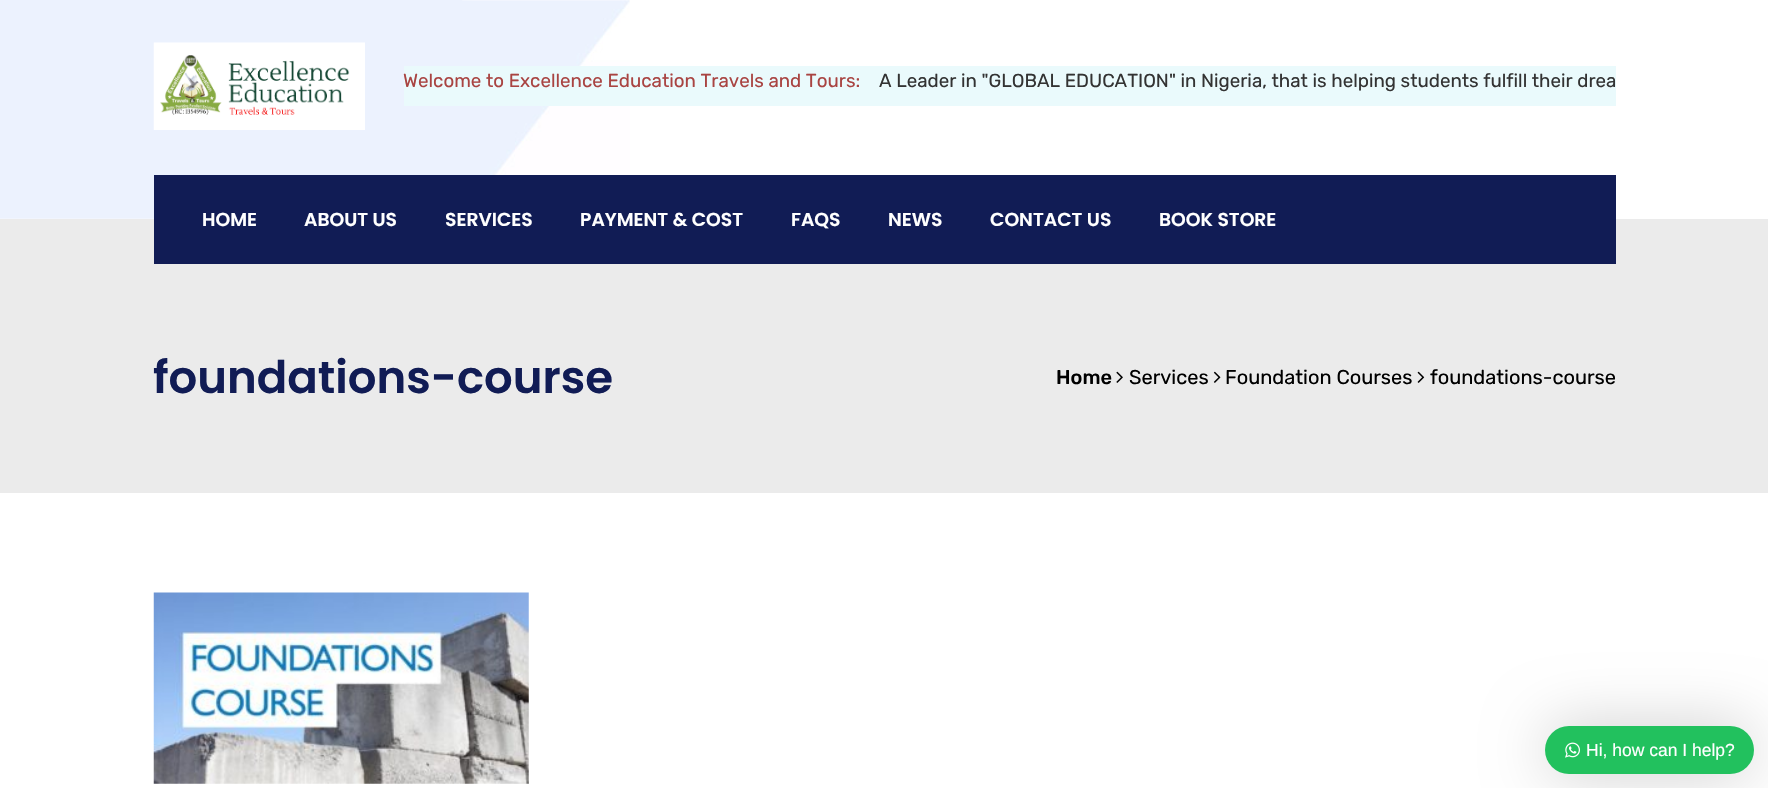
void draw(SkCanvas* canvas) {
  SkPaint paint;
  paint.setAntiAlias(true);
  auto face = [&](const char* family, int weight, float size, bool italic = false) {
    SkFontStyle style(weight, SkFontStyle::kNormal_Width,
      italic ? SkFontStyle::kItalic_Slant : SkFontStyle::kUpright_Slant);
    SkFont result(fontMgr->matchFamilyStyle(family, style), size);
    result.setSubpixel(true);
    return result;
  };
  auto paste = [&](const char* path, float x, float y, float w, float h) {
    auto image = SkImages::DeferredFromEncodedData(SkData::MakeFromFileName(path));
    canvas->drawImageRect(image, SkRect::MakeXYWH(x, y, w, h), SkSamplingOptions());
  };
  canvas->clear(0xffffffff);
  paste("img/1.png", 0, 0, 630, 219);
  paste("img/2.png", 153, 42, 212, 88);
  {
    const struct { float x, y, w, h; SkColor color; } items[] = {
      {404, 66, 1212, 40, 0xffeafafc},
      {0, 219, 1768, 274, 0xffebebeb},
      {154, 175, 1462, 89, 0xff111c55},
    };
    for (auto [x, y, w, h, color] : items) {
      paint.setColor(color);
      canvas->drawRect(SkRect::MakeXYWH(x, y, w, h), paint);
    }
  }
  paste("img/3.png", 1116, 371, 7, 12);
  paste("img/4.png", 1213, 371, 8, 12);
  paste("img/5.png", 1417, 371, 8, 12);
  paste("img/6.png", 153, 592, 376, 192);
  paint.setColor(0x33000000);
  paint.setMaskFilter(SkMaskFilter::MakeBlur(kNormal_SkBlurStyle, 31));
  canvas->drawRoundRect(SkRect::MakeXYWH(1545, 726, 209, 48), 24, 24, paint);
  paint.setMaskFilter(nullptr);
  paint.setColor(0xff22c15e);
  canvas->drawRoundRect(SkRect::MakeXYWH(1545, 726, 209, 48), 24, 24, paint);
  paste("img/7.png", 1565, 742, 15, 16);
  auto f0 = face("Rubik", 300, 18.75f);
  paint.setColor(0xffa94442);
  canvas->drawString("Welcome to Excellence Education Travels and Tours:", 403, 87, f0, paint);
  paint.setColor(0xff333333);
  canvas->drawString("A Leader in \"GLOBAL EDUCATION\" in Nigeria, that is helping students fulfill their drea", 879, 87, f0, paint);
  auto f1 = face("Poppins", 600, 18.75f);
  paint.setColor(0xffffffff);
  {
    const struct { const char* s; float x, y; } items[] = {
      {"HOME", 202, 226},
      {"ABOUT US", 304, 226},
      {"SERVICES", 445, 226},
      {"PAYMENT & COST", 580, 226},
      {"FAQS", 791, 226},
      {"NEWS", 888, 226},
      {"CONTACT US", 990, 226},
      {"BOOK STORE", 1159, 226},
    };
    for (auto [s, x, y] : items) {
      canvas->drawString(s, x, y, f1, paint);
    }
  }
  auto f2 = face("Poppins", 600, 45);
  paint.setColor(0xff111c55);
  canvas->drawString("foundations-course", 153, 393, f2, paint);
  auto f3 = face("Rubik", 500, 20);
  paint.setColor(0xff000000);
  canvas->drawString("Home", 1056, 384, f3, paint);
  auto f4 = face("Rubik", 300, 20);
  {
    const struct { const char* s; float x, y; } items[] = {
      {"Services", 1129, 384},
      {"Foundation Courses", 1225, 384},
      {"foundations-course", 1430, 384},
    };
    for (auto [s, x, y] : items) {
      canvas->drawString(s, x, y, f4, paint);
    }
  }
  auto f5 = face("Liberation Sans", 400, 17.5f);
  paint.setColor(0xffffffff);
  canvas->drawString("Hi, how can I help?", 1586, 756, f5, paint);
}
